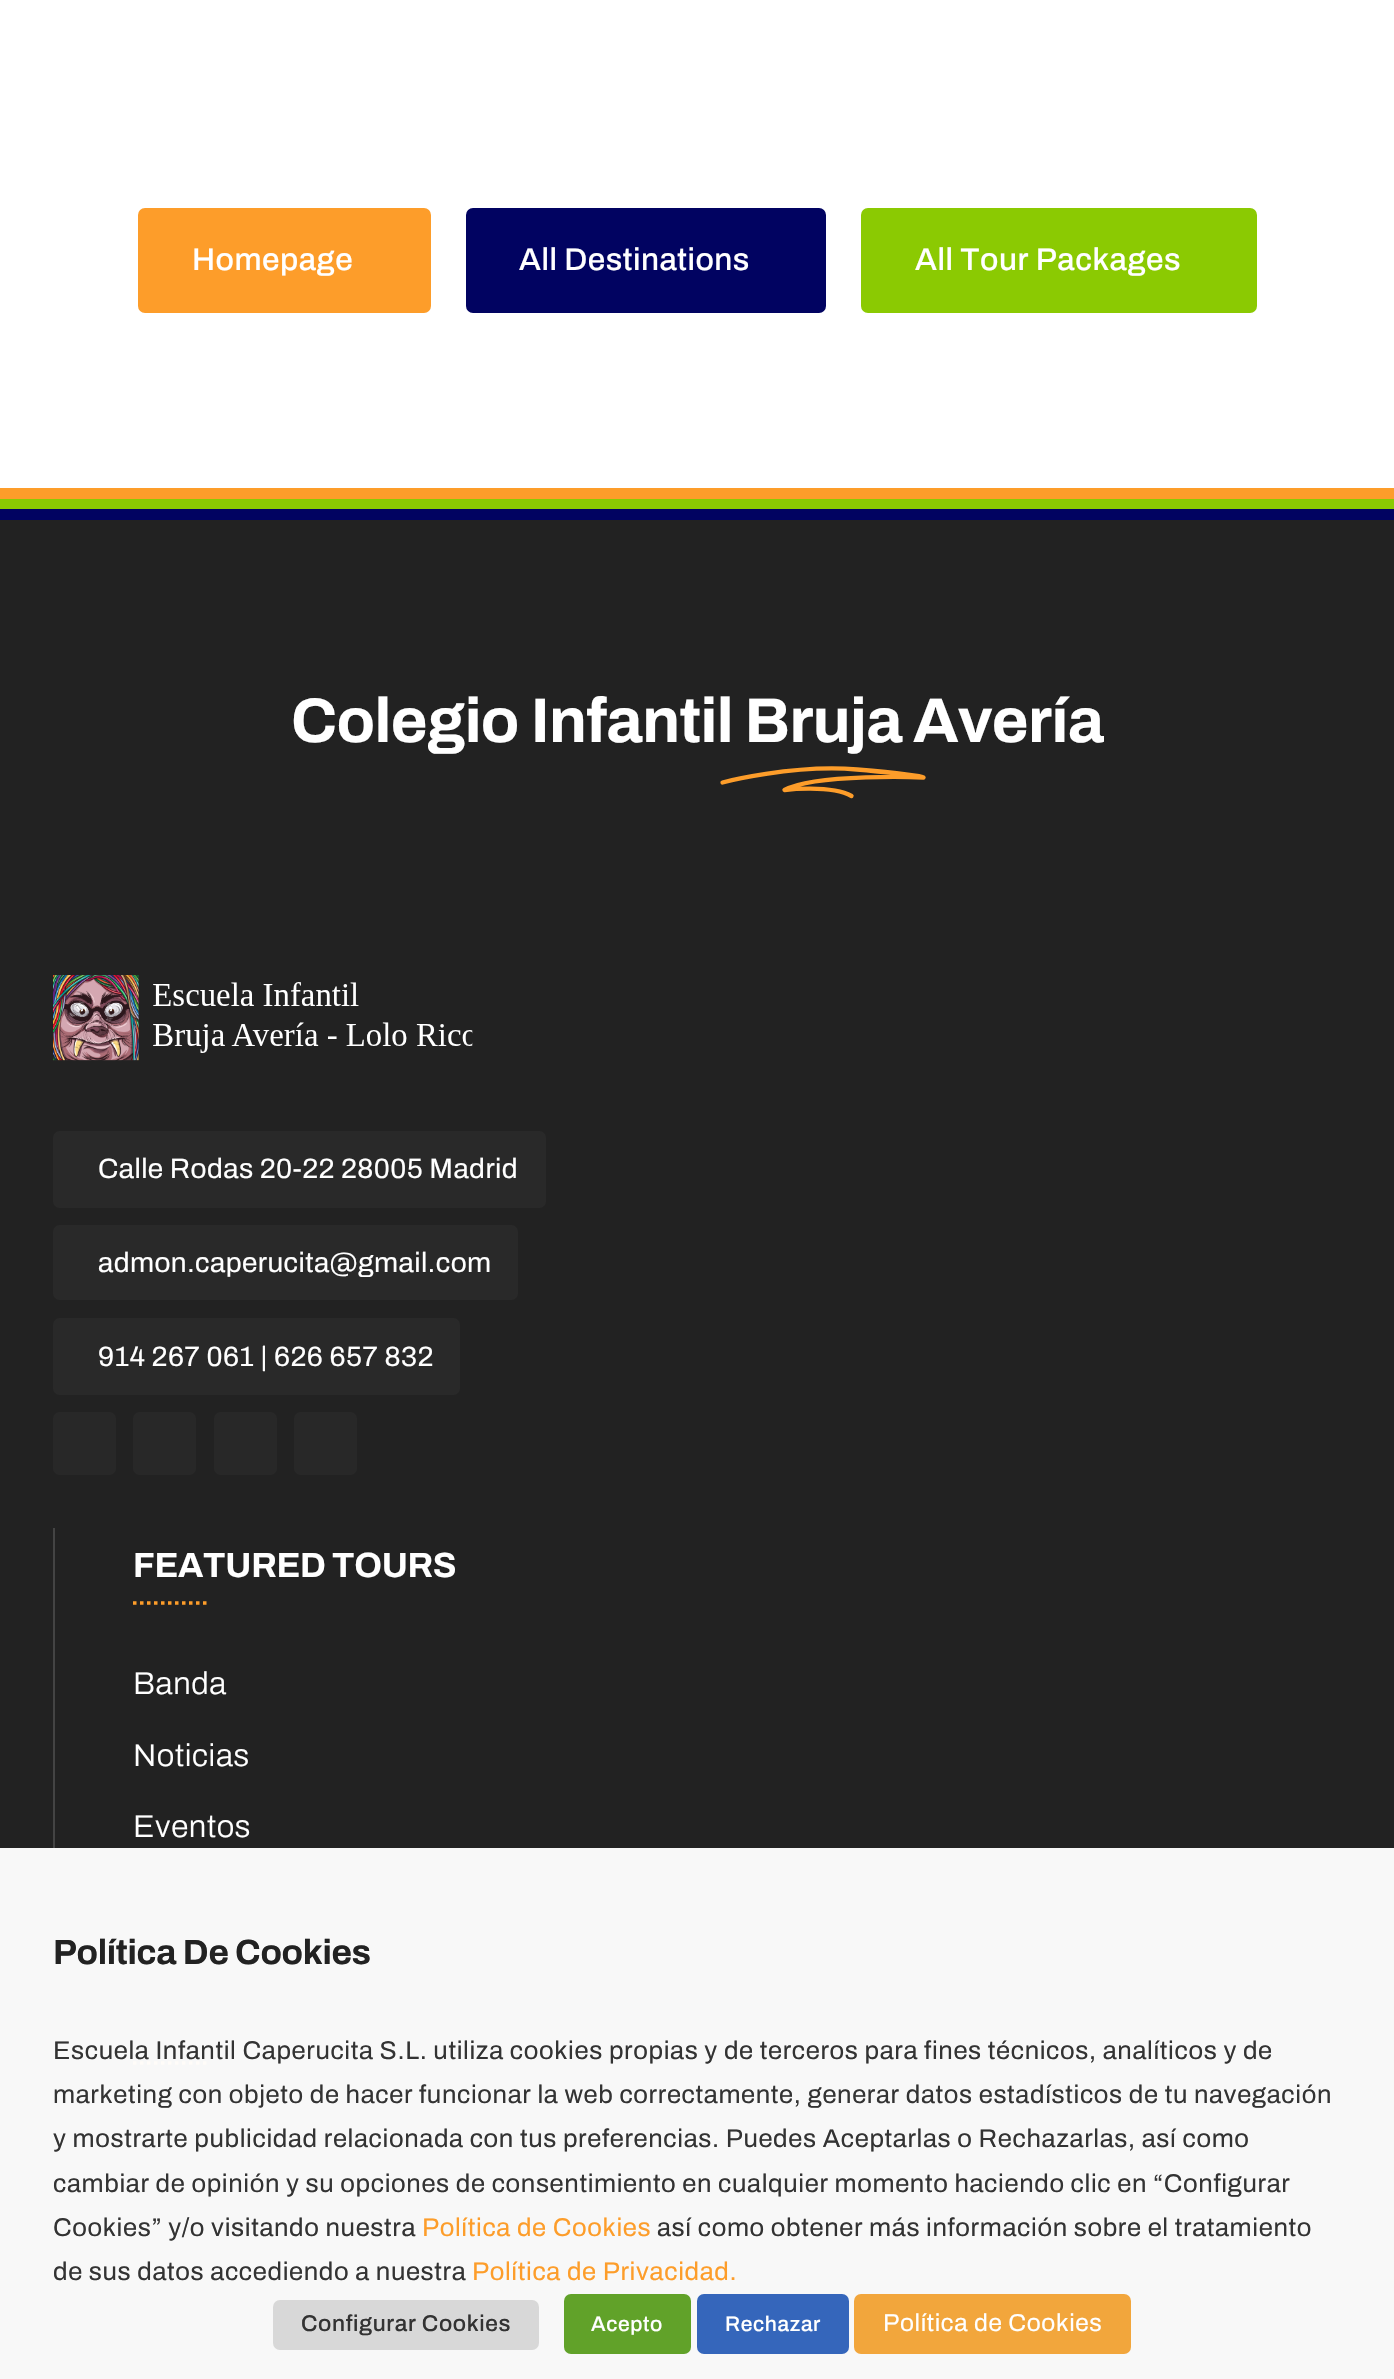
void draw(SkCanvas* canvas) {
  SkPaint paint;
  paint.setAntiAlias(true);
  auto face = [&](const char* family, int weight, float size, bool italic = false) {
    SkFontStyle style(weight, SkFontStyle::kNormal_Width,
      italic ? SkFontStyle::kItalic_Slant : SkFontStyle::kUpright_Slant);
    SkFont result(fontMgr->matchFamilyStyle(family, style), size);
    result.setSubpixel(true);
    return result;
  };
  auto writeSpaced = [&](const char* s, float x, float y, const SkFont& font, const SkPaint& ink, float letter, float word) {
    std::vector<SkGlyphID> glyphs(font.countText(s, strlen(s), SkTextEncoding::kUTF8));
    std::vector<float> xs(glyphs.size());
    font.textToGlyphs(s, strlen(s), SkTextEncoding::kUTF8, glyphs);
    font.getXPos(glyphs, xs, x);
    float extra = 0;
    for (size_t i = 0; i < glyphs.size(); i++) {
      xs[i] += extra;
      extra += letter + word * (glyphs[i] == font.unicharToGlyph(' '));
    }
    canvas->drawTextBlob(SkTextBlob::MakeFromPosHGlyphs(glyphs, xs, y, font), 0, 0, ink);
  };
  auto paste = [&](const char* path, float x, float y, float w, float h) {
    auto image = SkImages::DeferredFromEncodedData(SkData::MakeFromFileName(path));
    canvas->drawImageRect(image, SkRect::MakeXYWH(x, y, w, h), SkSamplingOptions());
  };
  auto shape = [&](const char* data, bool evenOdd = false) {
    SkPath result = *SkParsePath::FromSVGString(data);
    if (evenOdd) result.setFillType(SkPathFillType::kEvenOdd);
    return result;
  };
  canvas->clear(0xffffffff);
  paint.setColor(0xfffd9d2a);
  canvas->drawRoundRect(SkRect::MakeXYWH(139, 209, 291, 103), 6, 6, paint);
  paint.setStroke(true);
  paint.setStrokeWidth(2);
  canvas->drawRoundRect(SkRect::MakeXYWH(139, 209, 291, 103), 6, 6, paint);
  paint.setStroke(false);
  paint.setColor(0xff010361);
  canvas->drawRoundRect(SkRect::MakeXYWH(467, 209, 358, 103), 6, 6, paint);
  paint.setStroke(true);
  canvas->drawRoundRect(SkRect::MakeXYWH(467, 209, 358, 103), 6, 6, paint);
  paint.setStroke(false);
  paint.setColor(0xff8bca02);
  canvas->drawRoundRect(SkRect::MakeXYWH(862, 209, 394, 103), 6, 6, paint);
  paint.setStroke(true);
  canvas->drawRoundRect(SkRect::MakeXYWH(862, 209, 394, 103), 6, 6, paint);
  paint.setStroke(false);
  {
    const struct { float x, y, w, h; SkColor color; } items[] = {
      {0, 488, 1394, 11, 0xfffd9d2a},
      {0, 499, 1394, 10, 0xff8bca02},
      {0, 509, 1394, 11, 0xff010361},
      {0, 520, 1394, 1328, 0xff222222},
      {0, 1848, 1394, 531, 0xfff8f8f8},
    };
    for (auto [x, y, w, h, color] : items) {
      paint.setColor(color);
      canvas->drawRect(SkRect::MakeXYWH(x, y, w, h), paint);
    }
  }
  paint.setStroke(true);
  paint.setStrokeWidth(4.3f);
  paint.setStrokeCap(SkPaint::kRound_Cap);
  paint.setStrokeJoin(SkPaint::kRound_Join);
  paint.setColor(0xfffd9d2a);
  canvas->drawPath(shape("M722.5 782.5C722.5 782.5 793.5 764 857 769.5C920.5 775 923.5 777.5 923.5 777.5C923.5 777.5 816 773 784.5 790C784.5 790 831 784.5 851.5 796"), paint);
  paste("img/1.png", 53, 975, 420, 86);
  paint.setStroke(false);
  paint.setColor(0xff292929);
  canvas->drawRoundRect(SkRect::MakeXYWH(53, 1131, 493, 77), 7, 7, paint);
  canvas->drawRoundRect(SkRect::MakeXYWH(53, 1225, 465, 75), 7, 7, paint);
  canvas->drawRoundRect(SkRect::MakeXYWH(53, 1318, 407, 77), 7, 7, paint);
  paint.setColor(0xff282828);
  canvas->drawRoundRect(SkRect::MakeXYWH(53, 1412, 63, 63), 7, 7, paint);
  canvas->drawRoundRect(SkRect::MakeXYWH(133, 1412, 63, 63), 7, 7, paint);
  canvas->drawRoundRect(SkRect::MakeXYWH(214, 1412, 63, 63), 7, 7, paint);
  canvas->drawRoundRect(SkRect::MakeXYWH(294, 1412, 63, 63), 7, 7, paint);
  paint.setColor(0xff444444);
  canvas->drawRect(SkRect::MakeXYWH(53, 1528, 2, 320), paint);
  paint.setStroke(true);
  paint.setStrokeWidth(3.5f);
  paint.setStrokeCap(SkPaint::kButt_Cap);
  paint.setStrokeJoin(SkPaint::kMiter_Join);
  paint.setColor(0xfffd9d2a);
  paint.setPathEffect(SkDashPathEffect::Make({{3.5f, 3.5f}}, 0));
  canvas->drawPath(shape("M133 1603H206.5"), paint);
  paint.setPathEffect(nullptr);
  paint.setColor(0xfffffcf9);
  paint.setPathEffect(SkDashPathEffect::Make({{3.5f, 3.5f}}, 0));
  canvas->drawPath(shape("M133 2063H206.5"), paint);
  paint.setPathEffect(nullptr);
  paint.setStroke(false);
  paint.setColor(0xffd8d8d8);
  canvas->drawRoundRect(SkRect::MakeXYWH(273, 2300, 266, 50), 7, 7, paint);
  paint.setColor(0xff61a229);
  canvas->drawRoundRect(SkRect::MakeXYWH(564, 2294, 127, 60), 7, 7, paint);
  paint.setColor(0xff3566bb);
  canvas->drawRoundRect(SkRect::MakeXYWH(697, 2294, 152, 60), 7, 7, paint);
  paint.setColor(0xfff2a63c);
  canvas->drawRoundRect(SkRect::MakeXYWH(854, 2294, 277, 60), 7, 7, paint);
  auto f0 = face("Archivo", 500, 31.5f);
  paint.setColor(0xffffffff);
  {
    const struct { const char* s; float x, y; } items[] = {
      {"Homepage", 192, 270},
      {"All Destinations", 519, 270},
      {"All Tour Packages", 915, 270},
    };
    for (auto [s, x, y] : items) {
      writeSpaced(s, x, y, f0, paint, 0.5f, 0);
    }
  }
  auto f1 = face("Archivo", 700, 63);
  writeSpaced("Colegio Infantil Bruja", 291, 742, f1, paint, -0.6f, 0);
  writeSpaced("Avería", 913, 742, f1, paint, -0.6f, 0);
  auto f2 = face("Archivo", 400, 28);
  {
    const struct { const char* s; float x, y; } items[] = {
      {"Calle Rodas 20-22 28005 Madrid", 98, 1178},
      {"admon.caperucita@gmail.com", 98, 1272},
      {"914 267 061 | 626 657 832", 98, 1366},
    };
    for (auto [s, x, y] : items) {
      writeSpaced(s, x, y, f2, paint, 0.4f, 0);
    }
  }
  auto f3 = face("Archivo", 700, 35);
  writeSpaced("FEATURED TOURS", 133, 1577, f3, paint, -0.3f, 0);
  auto f4 = face("Archivo", 300, 31.5f);
  {
    const struct { const char* s; float x, y; } items[] = {
      {"Banda", 133, 1694},
      {"Noticias", 133, 1766},
      {"Eventos", 133, 1837},
    };
    for (auto [s, x, y] : items) {
      writeSpaced(s, x, y, f4, paint, 0.63f, 0);
    }
  }
  paint.setColor(0xff222222);
  writeSpaced("Política De Cookies", 53, 1964, f3, paint, -0.3f, 0);
  auto f5 = face("Archivo", 400, 25.65f);
  paint.setColor(0xff333333);
  {
    const struct { const char* s; float x, y; } items[] = {
      {"Escuela Infantil Caperucita S.L. utiliza cookies propias y de terceros para fines técnicos, analíticos y de", 53, 2059},
      {"marketing con objeto de hacer funcionar la web correctamente, generar datos estadísticos de tu navegación", 53, 2103},
      {"y mostrarte publicidad relacionada con tus preferencias. Puedes Aceptarlas o Rechazarlas, así como", 53, 2147},
      {"cambiar de opinión y su opciones de consentimiento en cualquier momento haciendo clic en “Configurar", 53, 2192},
      {"Cookies” y/o visitando nuestra", 53, 2236},
    };
    for (auto [s, x, y] : items) {
      writeSpaced(s, x, y, f5, paint, 0.63f, 0);
    }
  }
  paint.setColor(0xfffd9d2a);
  writeSpaced("Política de Cookies", 422, 2236, f5, paint, 0.63f, 0);
  paint.setColor(0xff333333);
  writeSpaced("así como obtener más información sobre el tratamiento", 657, 2236, f5, paint, 0.63f, 0);
  writeSpaced("de sus datos accediendo a nuestra", 53, 2280, f5, paint, 0.63f, 0);
  paint.setColor(0xfffd9d2a);
  writeSpaced("Política de Privacidad.", 472, 2280, f5, paint, 0.63f, 0);
  auto f6 = face("Archivo", 500, 22.75f);
  paint.setColor(0xff333333);
  writeSpaced("Configurar Cookies", 301, 2331, f6, paint, 0.63f, 0);
  auto f7 = face("Archivo", 500, 21);
  paint.setColor(0xffffffff);
  writeSpaced("Acepto", 591, 2331, f7, paint, 0.63f, 0);
  writeSpaced("Rechazar", 725, 2331, f7, paint, 0.63f, 0);
  auto f8 = face("Archivo", 400, 24.5f);
  writeSpaced("Política de Cookies", 883, 2331, f8, paint, 0.63f, 0);
}
